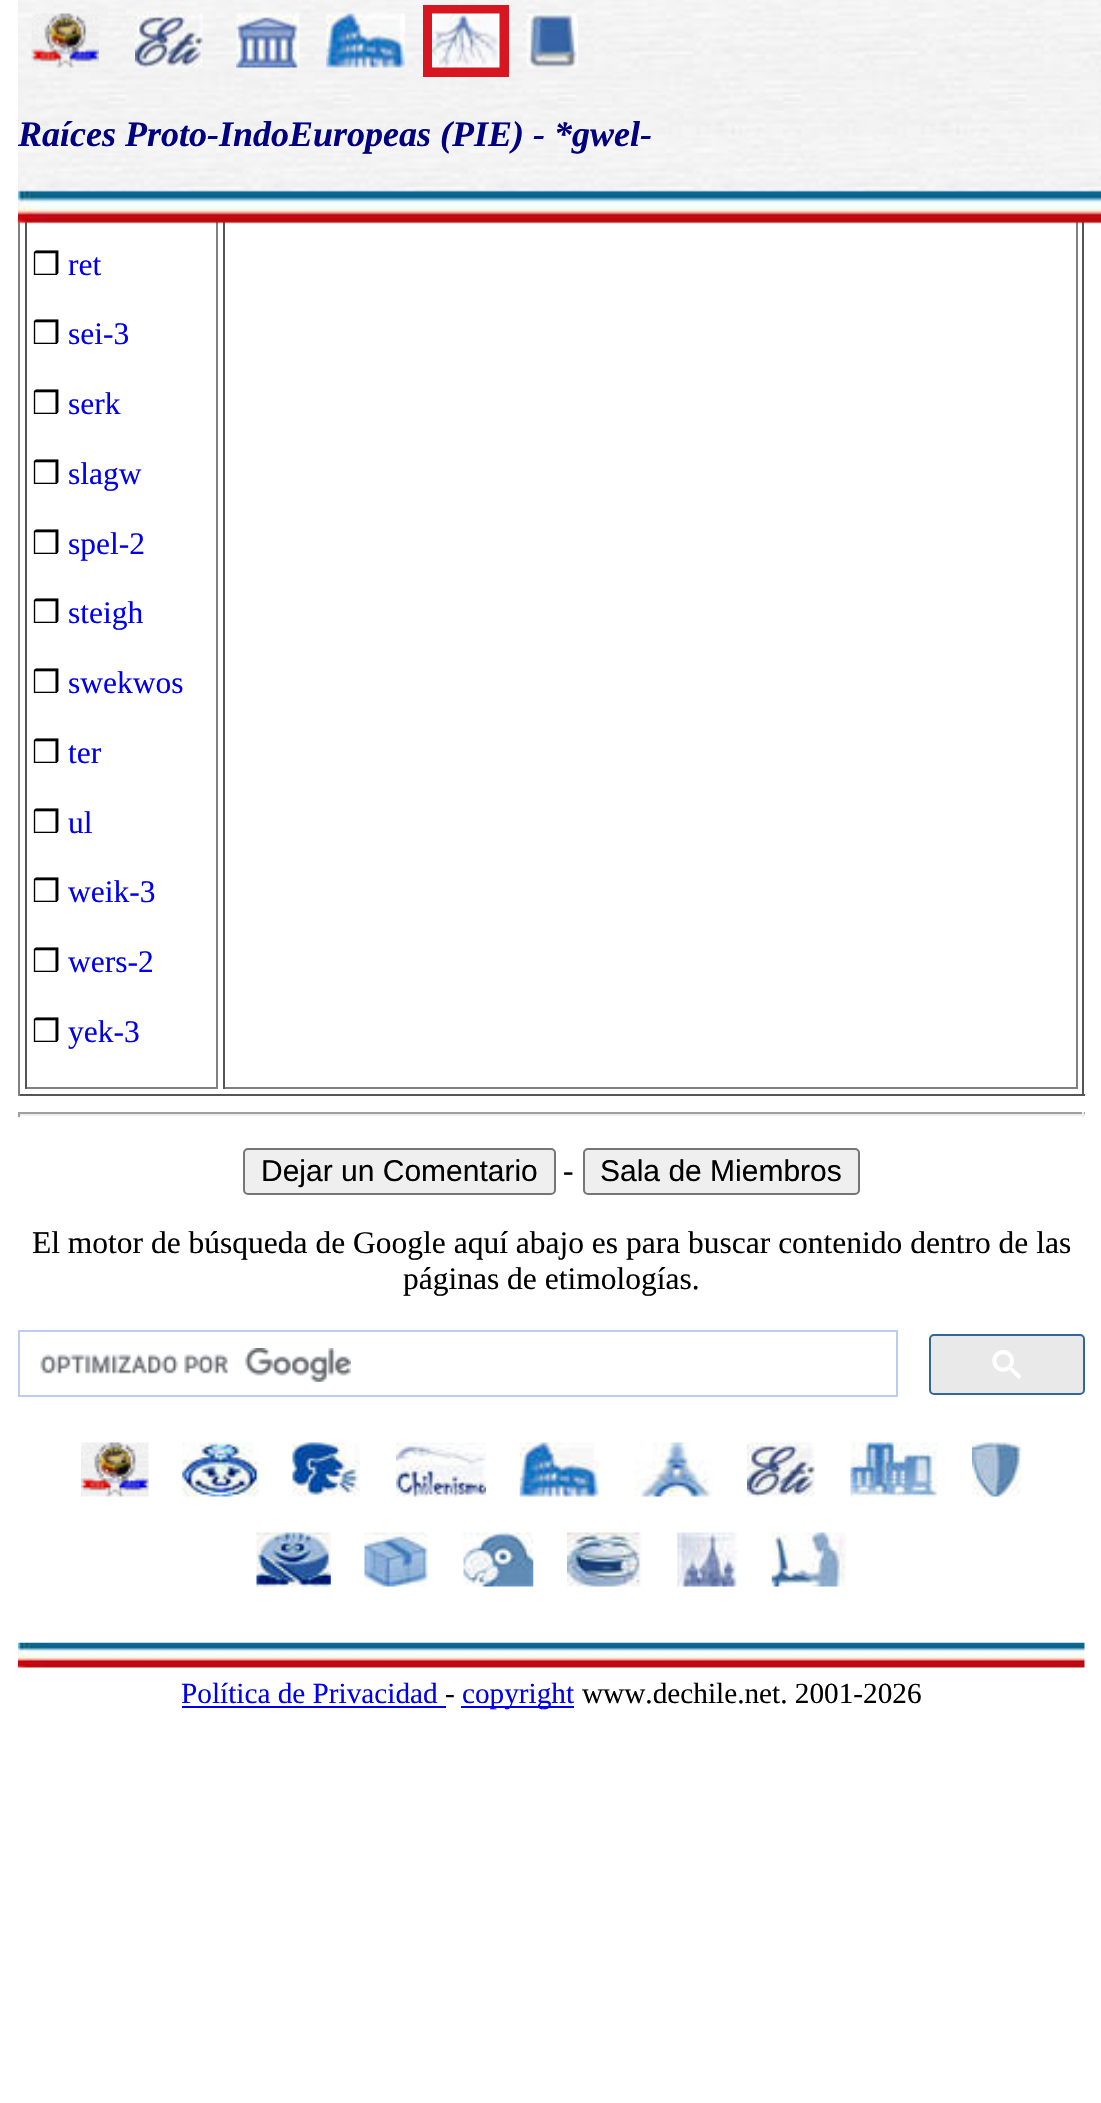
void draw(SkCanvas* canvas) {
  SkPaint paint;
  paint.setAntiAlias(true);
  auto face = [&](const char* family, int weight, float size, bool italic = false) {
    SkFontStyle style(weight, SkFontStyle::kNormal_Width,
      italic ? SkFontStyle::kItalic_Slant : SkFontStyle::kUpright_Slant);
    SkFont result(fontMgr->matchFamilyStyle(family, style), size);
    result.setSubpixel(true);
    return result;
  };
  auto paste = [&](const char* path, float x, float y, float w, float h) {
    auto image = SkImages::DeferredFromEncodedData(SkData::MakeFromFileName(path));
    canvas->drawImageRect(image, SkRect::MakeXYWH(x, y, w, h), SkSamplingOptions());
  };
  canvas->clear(0xffffffff);
  paste("img/1.png", 18, 0, 1083, 192);
  paste("img/2.png", 31, 13, 68, 55);
  paste("img/3.png", 135, 13, 68, 55);
  paste("img/4.png", 236, 13, 64, 55);
  paste("img/5.png", 326, 13, 79, 55);
  paint.setColor(0xffd81622);
  canvas->drawRect(SkRect::MakeXYWH(423, 5, 86, 72), paint);
  paste("img/6.png", 432, 13, 68, 55);
  paste("img/7.png", 526, 13, 52, 55);
  {
    const struct { float x, y, w, h; SkColor color; } items[] = {
      {1082, 222, 2, 874, 0xff555555},
      {18, 1094, 1067, 2, 0xff555555},
      {18, 222, 2, 874, 0xff808080},
      {216, 222, 2, 867, 0xff808080},
      {25, 1087, 193, 2, 0xff808080},
      {25, 222, 2, 867, 0xff555555},
      {1076, 222, 2, 867, 0xff808080},
      {223, 1087, 855, 2, 0xff808080},
      {223, 222, 2, 867, 0xff555555},
    };
    for (auto [x, y, w, h, color] : items) {
      paint.setColor(color);
      canvas->drawRect(SkRect::MakeXYWH(x, y, w, h), paint);
    }
  }
  paste("img/8.png", 18, 190, 1083, 34);
  {
    const struct { float x, y, w, h; SkColor color; } items[] = {
      {18, 1112, 1067, 2, 0xff9f9f9f},
      {1082, 1112, 2, 5, 0xffeeeeee},
      {18, 1114, 1067, 2, 0xffeeeeee},
      {18, 1112, 2, 5, 0xff9f9f9f},
    };
    for (auto [x, y, w, h, color] : items) {
      paint.setColor(color);
      canvas->drawRect(SkRect::MakeXYWH(x, y, w, h), paint);
    }
  }
  paint.setColor(0xffefefef);
  canvas->drawRoundRect(SkRect::MakeXYWH(244, 1149, 311, 45), 4, 4, paint);
  paint.setStroke(true);
  paint.setStrokeWidth(2);
  paint.setColor(0xff767676);
  canvas->drawRoundRect(SkRect::MakeXYWH(244, 1149, 311, 45), 4, 4, paint);
  paint.setStroke(false);
  paint.setColor(0xffefefef);
  canvas->drawRoundRect(SkRect::MakeXYWH(584, 1149, 275, 45), 4, 4, paint);
  paint.setStroke(true);
  paint.setColor(0xff767676);
  canvas->drawRoundRect(SkRect::MakeXYWH(584, 1149, 275, 45), 4, 4, paint);
  paint.setColor(0xffbccdf0);
  canvas->drawRect(SkRect::MakeXYWH(19, 1331, 878, 65), paint);
  paste("img/9.png", 40, 1348, 311, 34);
  paint.setStroke(false);
  paint.setColor(0xffe9e9e9);
  canvas->drawRoundRect(SkRect::MakeXYWH(930, 1335, 154, 59), 4, 4, paint);
  paint.setStroke(true);
  paint.setColor(0xff336699);
  canvas->drawRoundRect(SkRect::MakeXYWH(930, 1335, 154, 59), 4, 4, paint);
  paste("img/10.png", 992, 1350, 30, 29);
  paste("img/11.png", 81, 1442, 68, 55);
  paste("img/12.png", 182, 1442, 77, 55);
  paste("img/13.png", 292, 1442, 68, 55);
  paste("img/14.png", 396, 1442, 90, 55);
  paste("img/15.png", 519, 1442, 80, 55);
  paste("img/16.png", 634, 1442, 79, 55);
  paste("img/17.png", 747, 1442, 68, 55);
  paste("img/18.png", 850, 1442, 88, 55);
  paste("img/19.png", 972, 1442, 50, 55);
  paste("img/20.png", 256, 1532, 75, 55);
  paste("img/21.png", 364, 1532, 64, 55);
  paste("img/22.png", 463, 1532, 71, 55);
  paste("img/23.png", 567, 1532, 74, 55);
  paste("img/24.png", 677, 1532, 61, 55);
  paste("img/25.png", 771, 1532, 75, 55);
  paste("img/26.png", 18, 1642, 1067, 26);
  paint.setStroke(false);
  paint.setColor(0xff0000ee);
  canvas->drawRect(SkRect::MakeXYWH(182, 1706, 264, 2), paint);
  canvas->drawRect(SkRect::MakeXYWH(461, 1706, 113, 2), paint);
  auto f0 = face("Liberation Serif", 700, 36, true);
  paint.setColor(0xff000080);
  canvas->drawString("Raíces Proto-IndoEuropeas (PIE) - *gwel-", 18, 146, f0, paint);
  auto f1 = face("DejaVu Sans", 400, 31.5f);
  paint.setColor(0xff000000);
  canvas->drawString("❒", 32, 275, f1, paint);
  auto f2 = face("Liberation Serif", 400, 31.5f);
  paint.setColor(0xff0000ee);
  canvas->drawString("ret", 68, 275, f2, paint);
  paint.setColor(0xff000000);
  canvas->drawString("❒", 32, 344, f1, paint);
  paint.setColor(0xff0000ee);
  canvas->drawString("sei-3", 68, 344, f2, paint);
  paint.setColor(0xff000000);
  canvas->drawString("❒", 32, 414, f1, paint);
  paint.setColor(0xff0000ee);
  canvas->drawString("serk", 68, 414, f2, paint);
  paint.setColor(0xff000000);
  canvas->drawString("❒", 32, 484, f1, paint);
  paint.setColor(0xff0000ee);
  canvas->drawString("slagw", 68, 484, f2, paint);
  paint.setColor(0xff000000);
  canvas->drawString("❒", 32, 554, f1, paint);
  paint.setColor(0xff0000ee);
  canvas->drawString("spel-2", 68, 554, f2, paint);
  paint.setColor(0xff000000);
  canvas->drawString("❒", 32, 623, f1, paint);
  paint.setColor(0xff0000ee);
  canvas->drawString("steigh", 68, 623, f2, paint);
  paint.setColor(0xff000000);
  canvas->drawString("❒", 32, 693, f1, paint);
  paint.setColor(0xff0000ee);
  canvas->drawString("swekwos", 68, 693, f2, paint);
  paint.setColor(0xff000000);
  canvas->drawString("❒", 32, 763, f1, paint);
  paint.setColor(0xff0000ee);
  canvas->drawString("ter", 68, 763, f2, paint);
  paint.setColor(0xff000000);
  canvas->drawString("❒", 32, 833, f1, paint);
  paint.setColor(0xff0000ee);
  canvas->drawString("ul", 68, 833, f2, paint);
  paint.setColor(0xff000000);
  canvas->drawString("❒", 32, 902, f1, paint);
  paint.setColor(0xff0000ee);
  canvas->drawString("weik-3", 68, 902, f2, paint);
  paint.setColor(0xff000000);
  canvas->drawString("❒", 32, 972, f1, paint);
  paint.setColor(0xff0000ee);
  canvas->drawString("wers-2", 68, 972, f2, paint);
  paint.setColor(0xff000000);
  canvas->drawString("❒", 32, 1042, f1, paint);
  paint.setColor(0xff0000ee);
  canvas->drawString("yek-3", 68, 1042, f2, paint);
  auto f3 = face("Liberation Sans", 400, 30);
  paint.setColor(0xff000000);
  canvas->drawString("Dejar un Comentario", 261, 1181, f3, paint);
  canvas->drawString("-", 563, 1181, f2, paint);
  canvas->drawString("Sala de Miembros", 600, 1181, f3, paint);
  canvas->drawString("El motor de búsqueda de Google aquí abajo es para buscar contenido dentro de las", 32, 1253, f2, paint);
  canvas->drawString("páginas de etimologías.", 403, 1289, f2, paint);
  auto f4 = face("Liberation Serif", 400, 29.25f);
  paint.setColor(0xff0000ee);
  canvas->drawString("Política de Privacidad", 181, 1703, f4, paint);
  paint.setColor(0xff000000);
  canvas->drawString("-", 445, 1703, f4, paint);
  paint.setColor(0xff0000ee);
  canvas->drawString("copyright", 462, 1703, f4, paint);
  paint.setColor(0xff000000);
  canvas->drawString("www.dechile.net. 2001-2026", 582, 1703, f4, paint);
}
